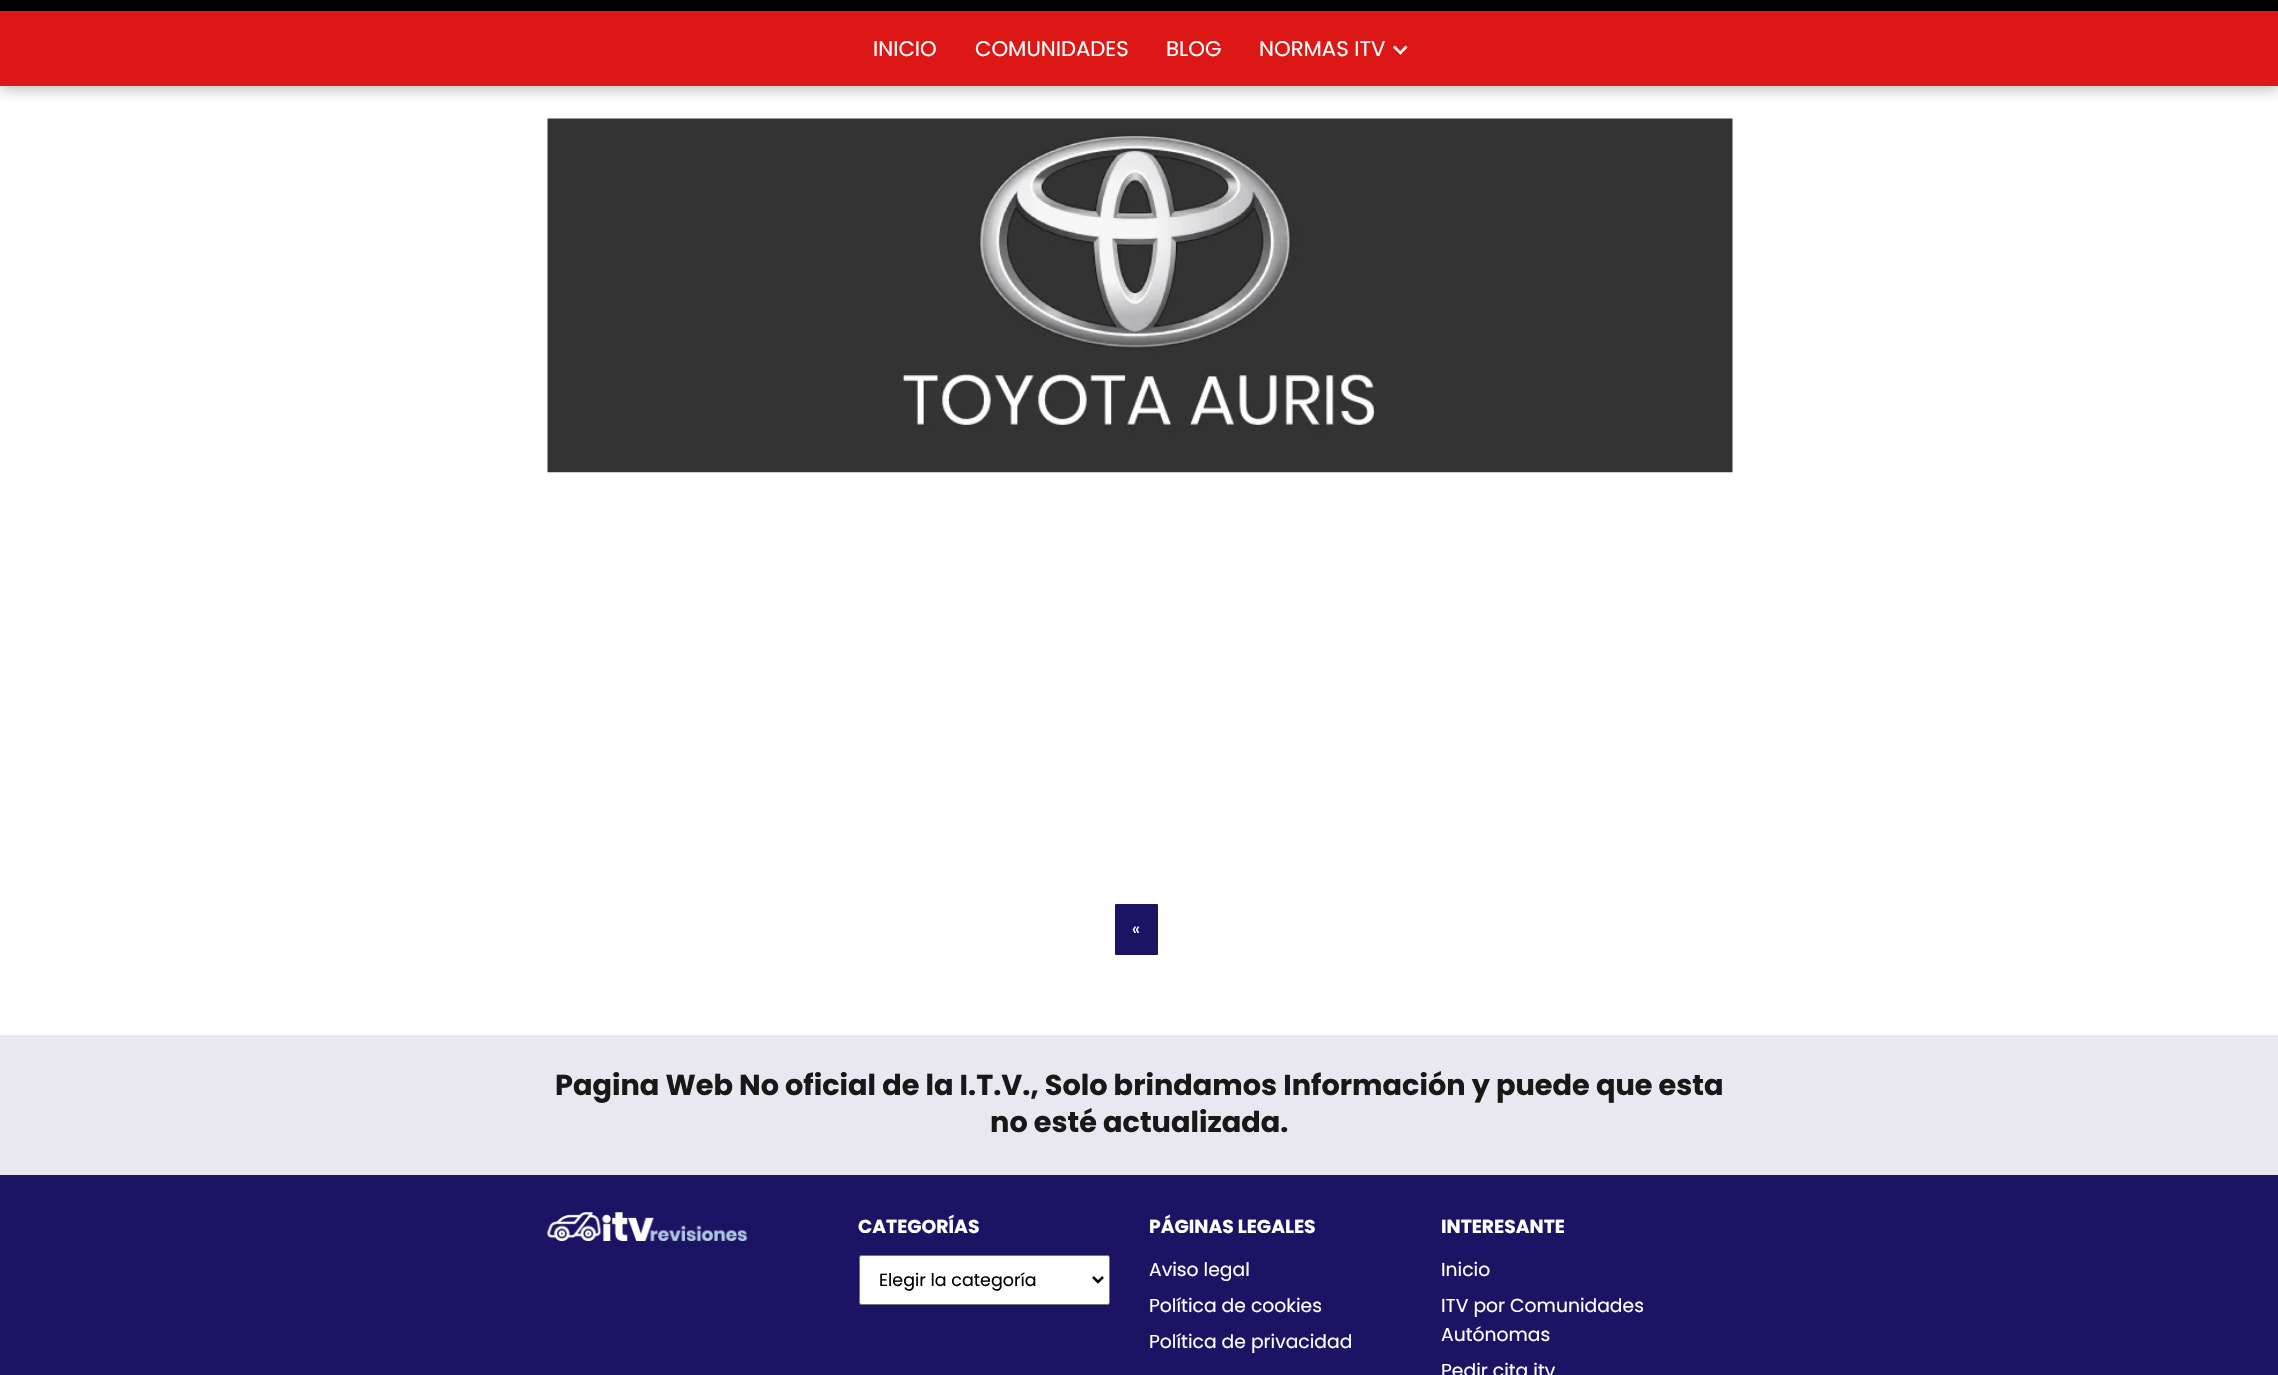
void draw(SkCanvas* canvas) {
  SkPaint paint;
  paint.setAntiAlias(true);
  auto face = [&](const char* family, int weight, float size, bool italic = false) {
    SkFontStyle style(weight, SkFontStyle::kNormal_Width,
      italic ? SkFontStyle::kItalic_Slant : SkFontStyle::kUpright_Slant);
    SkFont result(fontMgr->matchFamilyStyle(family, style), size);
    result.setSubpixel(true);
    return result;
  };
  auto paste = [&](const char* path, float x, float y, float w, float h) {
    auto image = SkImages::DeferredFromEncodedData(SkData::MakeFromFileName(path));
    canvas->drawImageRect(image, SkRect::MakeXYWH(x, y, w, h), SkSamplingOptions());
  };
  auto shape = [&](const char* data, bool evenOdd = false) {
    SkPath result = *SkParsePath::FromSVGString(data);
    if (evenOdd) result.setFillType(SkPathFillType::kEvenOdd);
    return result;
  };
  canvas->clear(0xffffffff);
  paint.setColor(0x4d000000);
  paint.setMaskFilter(SkMaskFilter::MakeBlur(kNormal_SkBlurStyle, 7.5f));
  canvas->drawRect(SkRect::MakeXYWH(0, 13, 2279, 75), paint);
  paint.setMaskFilter(nullptr);
  paint.setColor(0xff000000);
  canvas->drawRect(SkRect::MakeXYWH(0, 0, 2278, 11), paint);
  paint.setColor(0xffdd1616);
  canvas->drawRect(SkRect::MakeXYWH(0, 11, 2278, 75), paint);
  paint.setColor(0xffffffff);
  canvas->drawPath(shape("M1405.5 45.5L1407.5 47.5L1400.5 54.5L1398.5 53Z"), paint);
  canvas->drawPath(shape("M1395 45.5L1402 53L1400.5 54.5L1393 47.5Z"), paint);
  paste("img/1.png", 547, 118, 1186, 355);
  paint.setColor(0xff1b1464);
  canvas->drawRoundRect(SkRect::MakeXYWH(1115, 904, 43, 51), 1, 1, paint);
  paint.setColor(0xffe9e8f0);
  canvas->drawRect(SkRect::MakeXYWH(0, 1035, 2278, 140), paint);
  paint.setColor(0xff1b1464);
  canvas->drawRect(SkRect::MakeXYWH(0, 1175, 2278, 200), paint);
  paste("img/2.png", 547, 1212, 201, 29);
  paint.setColor(0xffffffff);
  canvas->drawRoundRect(SkRect::MakeXYWH(859.5f, 1255.5f, 250, 49), 2, 2, paint);
  paint.setStroke(true);
  paint.setStrokeWidth(1);
  paint.setColor(0xff767676);
  canvas->drawRoundRect(SkRect::MakeXYWH(859.5f, 1255.5f, 250, 49), 2, 2, paint);
  paint.setStrokeWidth(2.5f);
  paint.setColor(0xff000000);
  canvas->drawPath(shape("M1093 1277L1098 1282L1103 1277"), paint);
  auto f0 = face("Poppins", 400, 21.25f);
  paint.setStroke(false);
  paint.setColor(0xffffffff);
  {
    const struct { const char* s; float x, y; } items[] = {
      {"INICIO", 873, 56},
      {"COMUNIDADES", 975, 56},
      {"BLOG", 1166, 56},
      {"NORMAS ITV", 1259, 56},
    };
    for (auto [s, x, y] : items) {
      canvas->drawString(s, x, y, f0, paint);
    }
  }
  auto f1 = face("Poppins", 400, 17.5f);
  canvas->drawString("«", 1132, 935, f1, paint);
  auto f2 = face("Poppins", 700, 28.75f);
  paint.setColor(0xff181818);
  canvas->drawString("Pagina Web No oficial de la I.T.V., Solo brindamos Información y puede que esta", 555, 1095, f2, paint);
  canvas->drawString("no esté actualizada.", 990, 1132, f2, paint);
  auto f3 = face("Poppins", 700, 18.75f);
  paint.setColor(0xffffffff);
  canvas->drawString("CATEGORÍAS", 858, 1233, f3, paint);
  paint.setColor(0xff000000);
  canvas->drawString("Elegir la categoría", 879, 1286, f1, paint);
  paint.setColor(0xffffffff);
  canvas->drawString("PÁGINAS LEGALES", 1149, 1233, f3, paint);
  auto f4 = face("Poppins", 400, 18.75f);
  {
    const struct { const char* s; float x, y; } items[] = {
      {"Aviso legal", 1149, 1276},
      {"Política de cookies", 1149, 1312},
      {"Política de privacidad", 1149, 1348},
    };
    for (auto [s, x, y] : items) {
      canvas->drawString(s, x, y, f4, paint);
    }
  }
  canvas->drawString("INTERESANTE", 1441, 1233, f3, paint);
  {
    const struct { const char* s; float x, y; } items[] = {
      {"Inicio", 1441, 1276},
      {"ITV por Comunidades", 1441, 1312},
      {"Autónomas", 1441, 1341},
      {"Pedir cita itv", 1441, 1377},
    };
    for (auto [s, x, y] : items) {
      canvas->drawString(s, x, y, f4, paint);
    }
  }
}
